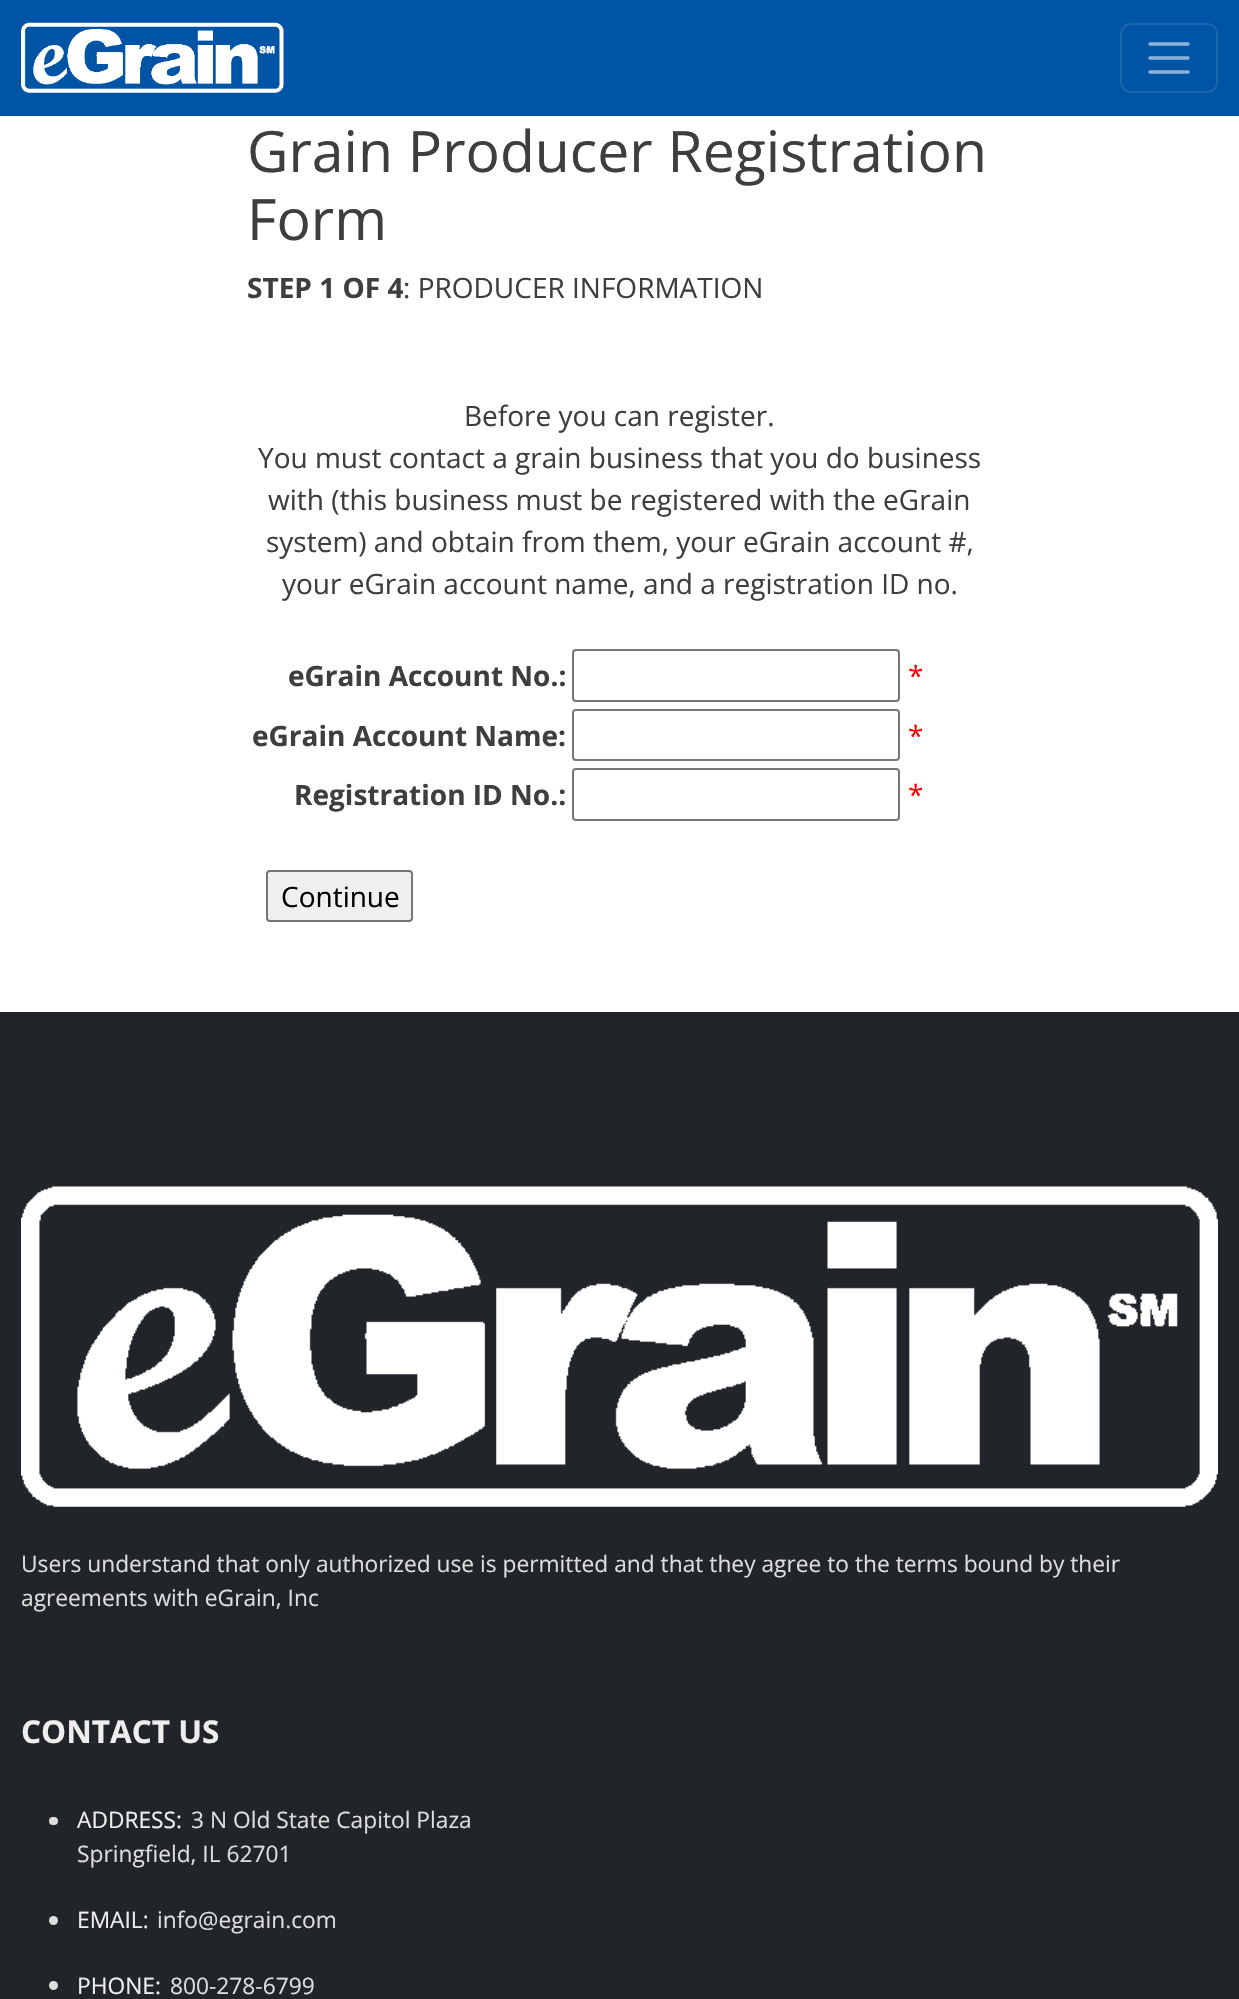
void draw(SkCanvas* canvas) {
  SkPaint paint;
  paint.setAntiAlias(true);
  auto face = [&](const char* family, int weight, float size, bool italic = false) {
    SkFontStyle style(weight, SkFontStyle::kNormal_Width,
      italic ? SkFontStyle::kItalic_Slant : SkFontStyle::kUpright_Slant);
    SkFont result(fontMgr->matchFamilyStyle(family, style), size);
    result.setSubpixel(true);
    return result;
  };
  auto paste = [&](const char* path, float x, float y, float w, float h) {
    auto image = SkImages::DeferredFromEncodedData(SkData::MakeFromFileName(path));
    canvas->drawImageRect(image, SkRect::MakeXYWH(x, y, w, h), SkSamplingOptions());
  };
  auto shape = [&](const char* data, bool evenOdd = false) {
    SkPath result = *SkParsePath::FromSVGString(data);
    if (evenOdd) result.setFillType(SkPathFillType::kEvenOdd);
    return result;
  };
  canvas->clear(0xffffffff);
  paint.setColor(0xff0054a6);
  canvas->drawRect(SkRect::MakeXYWH(0, 0, 1239, 116), paint);
  paste("img/1.png", 21, 22, 263, 71);
  paint.setStroke(true);
  paint.setStrokeWidth(2);
  paint.setColor(0xff1a65af);
  canvas->drawRoundRect(SkRect::MakeXYWH(1121, 24, 96, 68), 10, 10, paint);
  paint.setStrokeWidth(3.5f);
  paint.setStrokeCap(SkPaint::kRound_Cap);
  paint.setColor(0xff8cb2d7);
  canvas->drawPath(shape("M1150 44H1188M1150 58H1188M1150 72H1188"), paint);
  paint.setStrokeWidth(2);
  paint.setStrokeCap(SkPaint::kButt_Cap);
  paint.setColor(0xff767676);
  canvas->drawRoundRect(SkRect::MakeXYWH(573, 650, 326, 51), 3, 3, paint);
  canvas->drawRoundRect(SkRect::MakeXYWH(573, 710, 326, 50), 3, 3, paint);
  canvas->drawRoundRect(SkRect::MakeXYWH(573, 769, 326, 51), 3, 3, paint);
  paint.setStroke(false);
  paint.setColor(0xffefefef);
  canvas->drawRoundRect(SkRect::MakeXYWH(267, 871, 145, 50), 3, 3, paint);
  paint.setStroke(true);
  paint.setColor(0xff767676);
  canvas->drawRoundRect(SkRect::MakeXYWH(267, 871, 145, 50), 3, 3, paint);
  paint.setStroke(false);
  paint.setColor(0xff212529);
  canvas->drawRect(SkRect::MakeXYWH(0, 1012, 1239, 987), paint);
  paste("img/2.png", 21, 1186, 1197, 321);
  paint.setColor(0xffdddddd);
  canvas->drawRoundRect(SkRect::MakeXYWH(49, 1817, 9, 8), 4, 4, paint);
  canvas->drawCircle(53.5f, 1920.5f, 4.5f, paint);
  canvas->drawCircle(53.5f, 1985.5f, 4.5f, paint);
  auto f0 = face("Open Sans", 400, 57.1f);
  paint.setColor(0xff3e3e3e);
  canvas->drawString("Grain Producer Registration", 247, 172, f0, paint);
  canvas->drawString("Form", 247, 240, f0, paint);
  auto f1 = face("Open Sans", 700, 28);
  canvas->drawString("STEP 1 OF 4", 247, 298, f1, paint);
  auto f2 = face("Open Sans", 400, 28);
  {
    const struct { const char* s; float x, y; } items[] = {
      {": PRODUCER INFORMATION", 403, 298},
      {"Before you can register.", 464, 426},
      {"You must contact a grain business that you do business", 258, 468},
      {"with (this business must be registered with the eGrain", 268, 510},
      {"system) and obtain from them, your eGrain account #,", 266, 552},
      {"your eGrain account name, and a registration ID no.", 282, 594},
    };
    for (auto [s, x, y] : items) {
      canvas->drawString(s, x, y, f2, paint);
    }
  }
  canvas->drawString("eGrain Account No.:", 288, 686, f1, paint);
  paint.setColor(0xffff0000);
  canvas->drawString("*", 908, 686, f2, paint);
  paint.setColor(0xff3e3e3e);
  canvas->drawString("eGrain Account Name:", 252, 746, f1, paint);
  paint.setColor(0xffff0000);
  canvas->drawString("*", 908, 746, f2, paint);
  paint.setColor(0xff3e3e3e);
  canvas->drawString("Registration ID No.:", 294, 805, f1, paint);
  paint.setColor(0xffff0000);
  canvas->drawString("*", 908, 805, f2, paint);
  paint.setColor(0xff000000);
  canvas->drawString("Continue", 281, 907, f2, paint);
  auto f3 = face("Open Sans", 400, 22.75f);
  paint.setColor(0xffdddddd);
  canvas->drawString("Users understand that only authorized use is permitted and that they agree to the terms bound by their", 21, 1572, f3, paint);
  canvas->drawString("agreements with eGrain, Inc", 21, 1606, f3, paint);
  auto f4 = face("Open Sans", 700, 31.5f);
  paint.setColor(0xffeeeeee);
  canvas->drawString("CONTACT US", 21, 1743, f4, paint);
  canvas->drawString("ADDRESS:", 77, 1828, f3, paint);
  paint.setColor(0xffdddddd);
  canvas->drawString("3 N Old State Capitol Plaza", 191, 1828, f3, paint);
  canvas->drawString("Springfield, IL 62701", 77, 1862, f3, paint);
  paint.setColor(0xffeeeeee);
  canvas->drawString("EMAIL:", 77, 1928, f3, paint);
  paint.setColor(0xffdddddd);
  canvas->drawString("info@egrain.com", 157, 1928, f3, paint);
  paint.setColor(0xffeeeeee);
  canvas->drawString("PHONE:", 77, 1994, f3, paint);
  paint.setColor(0xffdddddd);
  canvas->drawString("800-278-6799", 170, 1994, f3, paint);
}
